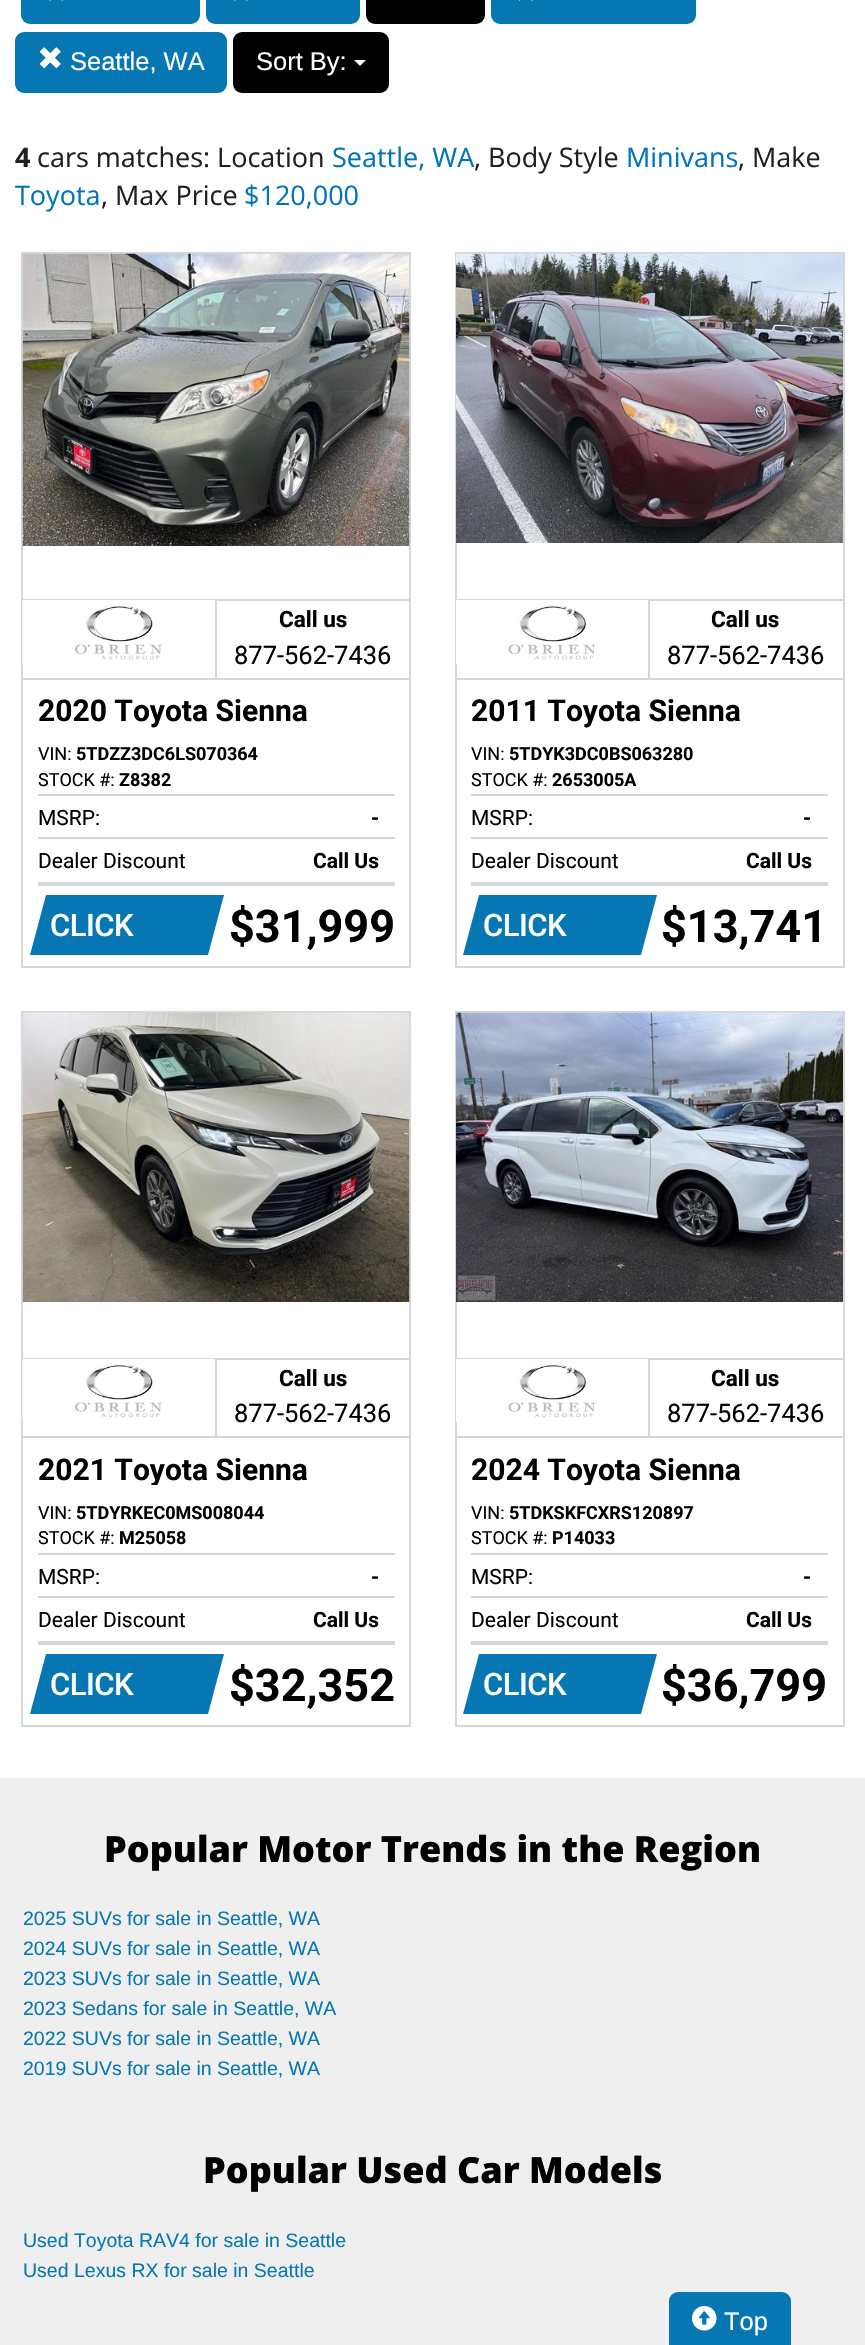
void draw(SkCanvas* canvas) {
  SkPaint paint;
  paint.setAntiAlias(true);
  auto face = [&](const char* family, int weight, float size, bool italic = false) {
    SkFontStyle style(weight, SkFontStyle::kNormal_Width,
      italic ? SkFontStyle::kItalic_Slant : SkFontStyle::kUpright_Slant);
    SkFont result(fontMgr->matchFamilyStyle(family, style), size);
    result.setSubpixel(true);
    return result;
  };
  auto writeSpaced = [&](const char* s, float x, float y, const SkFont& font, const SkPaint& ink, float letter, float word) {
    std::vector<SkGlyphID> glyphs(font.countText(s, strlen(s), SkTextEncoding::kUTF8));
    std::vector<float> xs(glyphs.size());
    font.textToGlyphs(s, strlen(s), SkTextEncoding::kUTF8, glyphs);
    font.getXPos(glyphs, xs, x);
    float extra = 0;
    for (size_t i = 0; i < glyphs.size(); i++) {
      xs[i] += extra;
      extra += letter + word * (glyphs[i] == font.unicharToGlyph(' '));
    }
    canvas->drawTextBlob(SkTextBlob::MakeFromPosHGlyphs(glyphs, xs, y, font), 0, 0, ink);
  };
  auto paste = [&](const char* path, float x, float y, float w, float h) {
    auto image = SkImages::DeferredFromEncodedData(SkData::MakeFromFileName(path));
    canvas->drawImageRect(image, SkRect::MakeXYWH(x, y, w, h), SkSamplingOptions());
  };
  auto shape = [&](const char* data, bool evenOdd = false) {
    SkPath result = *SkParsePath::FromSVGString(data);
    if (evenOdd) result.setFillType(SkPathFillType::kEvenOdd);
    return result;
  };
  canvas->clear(0xffffffff);
  paint.setColor(0xff0777b3);
  canvas->drawRoundRect(SkRect::MakeXYWH(21, -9, 179, 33), 9, 9, paint);
  paste("img/1.png", 49, 0, 14, 1);
  canvas->drawRoundRect(SkRect::MakeXYWH(206, -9, 154, 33), 9, 9, paint);
  paste("img/2.png", 234, 0, 14, 1);
  paint.setColor(0xff000000);
  canvas->drawRoundRect(SkRect::MakeXYWH(366, -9, 119, 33), 9, 9, paint);
  paint.setColor(0xff0777b3);
  canvas->drawRoundRect(SkRect::MakeXYWH(491, -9, 205, 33), 9, 9, paint);
  paste("img/2.png", 519, 0, 14, 1);
  canvas->drawRoundRect(SkRect::MakeXYWH(15, 32, 212, 61), 9, 9, paint);
  paste("img/3.png", 39, 47, 22, 22);
  paint.setColor(0xff000000);
  canvas->drawRoundRect(SkRect::MakeXYWH(233, 32, 156, 61), 9, 9, paint);
  paint.setColor(0xffffffff);
  canvas->drawPath(shape("M354 60H366L360 66Z"), paint);
  paint.setStroke(true);
  paint.setStrokeWidth(2);
  paint.setColor(0xffd4d8d9);
  canvas->drawRect(SkRect::MakeXYWH(22, 253, 388, 714), paint);
  paste("img/4.png", 22, 253, 388, 293);
  paint.setStroke(false);
  {
    const struct { float x, y, w, h; SkColor color; } items[] = {
      {23, 599, 193, 2, 0xffd4d8d9},
      {215, 599, 2, 81, 0xffd4d8d9},
      {23, 678, 387, 2, 0xffd4d8d9},
    };
    for (auto [x, y, w, h, color] : items) {
      paint.setColor(color);
      canvas->drawRect(SkRect::MakeXYWH(x, y, w, h), paint);
    }
  }
  paste("img/5.png", 22, 600, 193, 65);
  {
    const struct { float x, y, w, h; SkColor color; } items[] = {
      {216, 599, 194, 2, 0xffd4d8d9},
      {38, 794, 357, 2, 0xffd4d8d9},
      {38, 837, 357, 2, 0xffd4d8d9},
      {38, 882, 357, 4, 0xffd4d8d9},
    };
    for (auto [x, y, w, h, color] : items) {
      paint.setColor(color);
      canvas->drawRect(SkRect::MakeXYWH(x, y, w, h), paint);
    }
  }
  paint.setColor(0xff0777b3);
  canvas->drawPath(shape("M46 895H224L208 955H30Z"), paint);
  paint.setStroke(true);
  paint.setColor(0xffd4d8d9);
  canvas->drawRect(SkRect::MakeXYWH(456, 253, 388, 714), paint);
  paste("img/6.png", 456, 253, 387, 290);
  paint.setStroke(false);
  {
    const struct { float x, y, w, h; SkColor color; } items[] = {
      {456, 599, 194, 1, 0xffd4d8d9},
      {648, 599, 2, 81, 0xffd4d8d9},
      {456, 678, 387, 2, 0xffd4d8d9},
    };
    for (auto [x, y, w, h, color] : items) {
      paint.setColor(color);
      canvas->drawRect(SkRect::MakeXYWH(x, y, w, h), paint);
    }
  }
  paste("img/7.png", 456, 600, 192, 65);
  {
    const struct { float x, y, w, h; SkColor color; } items[] = {
      {650, 599, 193, 2, 0xffd4d8d9},
      {471, 794, 357, 2, 0xffd4d8d9},
      {471, 837, 357, 2, 0xffd4d8d9},
      {471, 882, 357, 4, 0xffd4d8d9},
    };
    for (auto [x, y, w, h, color] : items) {
      paint.setColor(color);
      canvas->drawRect(SkRect::MakeXYWH(x, y, w, h), paint);
    }
  }
  paint.setColor(0xff0777b3);
  canvas->drawPath(shape("M479 895H657L641 955H463Z"), paint);
  paint.setStroke(true);
  paint.setColor(0xffd4d8d9);
  canvas->drawRect(SkRect::MakeXYWH(22, 1012, 388, 714), paint);
  paste("img/8.png", 22, 1012, 388, 290);
  paint.setStroke(false);
  {
    const struct { float x, y, w, h; SkColor color; } items[] = {
      {23, 1358, 193, 2, 0xffd4d8d9},
      {215, 1358, 2, 79, 0xffd4d8d9},
      {23, 1436, 387, 2, 0xffd4d8d9},
    };
    for (auto [x, y, w, h, color] : items) {
      paint.setColor(color);
      canvas->drawRect(SkRect::MakeXYWH(x, y, w, h), paint);
    }
  }
  paste("img/9.png", 22, 1359, 193, 63);
  {
    const struct { float x, y, w, h; SkColor color; } items[] = {
      {216, 1358, 194, 2, 0xffd4d8d9},
      {38, 1553, 357, 2, 0xffd4d8d9},
      {38, 1596, 357, 2, 0xffd4d8d9},
      {38, 1641, 357, 4, 0xffd4d8d9},
    };
    for (auto [x, y, w, h, color] : items) {
      paint.setColor(color);
      canvas->drawRect(SkRect::MakeXYWH(x, y, w, h), paint);
    }
  }
  paint.setColor(0xff0777b3);
  canvas->drawPath(shape("M46 1654H224L208 1714H30Z"), paint);
  paint.setStroke(true);
  paint.setColor(0xffd4d8d9);
  canvas->drawRect(SkRect::MakeXYWH(456, 1012, 388, 714), paint);
  paste("img/10.png", 456, 1012, 387, 290);
  paint.setStroke(false);
  {
    const struct { float x, y, w, h; SkColor color; } items[] = {
      {456, 1358, 194, 1, 0xffd4d8d9},
      {648, 1358, 2, 79, 0xffd4d8d9},
      {456, 1436, 387, 2, 0xffd4d8d9},
    };
    for (auto [x, y, w, h, color] : items) {
      paint.setColor(color);
      canvas->drawRect(SkRect::MakeXYWH(x, y, w, h), paint);
    }
  }
  paste("img/11.png", 456, 1359, 192, 63);
  {
    const struct { float x, y, w, h; SkColor color; } items[] = {
      {650, 1358, 193, 2, 0xffd4d8d9},
      {471, 1553, 357, 2, 0xffd4d8d9},
      {471, 1596, 357, 2, 0xffd4d8d9},
      {471, 1641, 357, 4, 0xffd4d8d9},
    };
    for (auto [x, y, w, h, color] : items) {
      paint.setColor(color);
      canvas->drawRect(SkRect::MakeXYWH(x, y, w, h), paint);
    }
  }
  paint.setColor(0xff0777b3);
  canvas->drawPath(shape("M479 1654H657L641 1714H463Z"), paint);
  paint.setColor(0xffefefef);
  canvas->drawRect(SkRect::MakeXYWH(0, 1778, 865, 567), paint);
  paint.setColor(0xff0777b3);
  canvas->drawRoundRect(SkRect::MakeXYWH(670, 2293, 120, 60), 8, 8, paint);
  paint.setStroke(true);
  canvas->drawRoundRect(SkRect::MakeXYWH(670, 2293, 120, 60), 8, 8, paint);
  paste("img/12.png", 692, 2306, 25, 25);
  auto f0 = face("Liberation Sans", 400, 25.5f);
  paint.setStroke(false);
  paint.setColor(0xffffffff);
  canvas->drawString("Seattle, WA", 70, 70, f0, paint);
  canvas->drawString("Sort By:", 256, 70, f0, paint);
  auto f1 = face("Open Sans", 700, 27);
  paint.setColor(0xff231f20);
  canvas->drawString("4", 15, 167, f1, paint);
  auto f2 = face("Open Sans", 400, 27);
  canvas->drawString("cars matches: Location", 37, 167, f2, paint);
  paint.setColor(0xff0073bd);
  canvas->drawString("Seattle, WA", 332, 167, f2, paint);
  paint.setColor(0xff231f20);
  canvas->drawString(", Body Style", 474, 167, f2, paint);
  paint.setColor(0xff0073bd);
  canvas->drawString("Minivans", 626, 167, f2, paint);
  paint.setColor(0xff231f20);
  canvas->drawString(", Make", 738, 167, f2, paint);
  paint.setColor(0xff0073bd);
  canvas->drawString("Toyota", 15, 205, f2, paint);
  paint.setColor(0xff231f20);
  canvas->drawString(", Max Price", 101, 205, f2, paint);
  paint.setColor(0xff0073bd);
  canvas->drawString("$120,000", 244, 205, f2, paint);
  auto f3 = face("Roboto", 700, 22.5f);
  paint.setColor(0xff000000);
  canvas->drawString("Call us", 279, 627, f3, paint);
  auto f4 = face("Roboto", 400, 25.5f);
  canvas->drawString("877-562-7436", 234, 664, f4, paint);
  auto f5 = face("Roboto", 700, 30);
  canvas->drawString("2020 Toyota Sienna", 38, 721, f5, paint);
  auto f6 = face("Roboto", 400, 18);
  canvas->drawString("VIN:", 38, 760, f6, paint);
  auto f7 = face("Roboto", 700, 18);
  canvas->drawString("5TDZZ3DC6LS070364", 76, 760, f7, paint);
  canvas->drawString("STOCK #:", 38, 786, f6, paint);
  canvas->drawString("Z8382", 119, 786, f7, paint);
  auto f8 = face("Roboto", 400, 21);
  canvas->drawString("MSRP:", 38, 825, f8, paint);
  auto f9 = face("Roboto", 700, 21);
  canvas->drawString("-", 371, 825, f9, paint);
  canvas->drawString("Dealer Discount", 38, 868, f8, paint);
  canvas->drawString("Call Us", 313, 868, f9, paint);
  auto f10 = face("Roboto", 500, 31);
  paint.setColor(0xffffffff);
  writeSpaced("CLICK", 50, 936, f10, paint, -0.5f, 0);
  auto f11 = face("Roboto", 700, 45);
  paint.setColor(0xff000000);
  canvas->drawString("$31,999", 229, 942, f11, paint);
  canvas->drawString("Call us", 711, 627, f3, paint);
  canvas->drawString("877-562-7436", 667, 664, f4, paint);
  canvas->drawString("2011 Toyota Sienna", 471, 721, f5, paint);
  canvas->drawString("VIN:", 471, 760, f6, paint);
  canvas->drawString("5TDYK3DC0BS063280", 509, 760, f7, paint);
  canvas->drawString("STOCK #:", 471, 786, f6, paint);
  canvas->drawString("2653005A", 552, 786, f7, paint);
  canvas->drawString("MSRP:", 471, 825, f8, paint);
  canvas->drawString("-", 803, 825, f9, paint);
  canvas->drawString("Dealer Discount", 471, 868, f8, paint);
  canvas->drawString("Call Us", 746, 868, f9, paint);
  paint.setColor(0xffffffff);
  writeSpaced("CLICK", 483, 936, f10, paint, -0.5f, 0);
  paint.setColor(0xff000000);
  canvas->drawString("$13,741", 661, 942, f11, paint);
  canvas->drawString("Call us", 279, 1386, f3, paint);
  canvas->drawString("877-562-7436", 234, 1422, f4, paint);
  canvas->save();
  canvas->clipRect(SkRect::MakeXYWH(38, 1452, 270, 33));
  canvas->drawString("2021 Toyota Sienna", 38, 1480, f5, paint);
  canvas->restore();
  canvas->drawString("VIN:", 38, 1519, f6, paint);
  canvas->drawString("5TDYRKEC0MS008044", 76, 1519, f7, paint);
  canvas->drawString("STOCK #:", 38, 1544, f6, paint);
  canvas->drawString("M25058", 119, 1544, f7, paint);
  canvas->drawString("MSRP:", 38, 1584, f8, paint);
  canvas->drawString("-", 371, 1584, f9, paint);
  canvas->drawString("Dealer Discount", 38, 1627, f8, paint);
  canvas->drawString("Call Us", 313, 1627, f9, paint);
  paint.setColor(0xffffffff);
  writeSpaced("CLICK", 50, 1695, f10, paint, -0.5f, 0);
  paint.setColor(0xff000000);
  canvas->drawString("$32,352", 229, 1701, f11, paint);
  canvas->drawString("Call us", 711, 1386, f3, paint);
  canvas->drawString("877-562-7436", 667, 1422, f4, paint);
  canvas->save();
  canvas->clipRect(SkRect::MakeXYWH(471, 1452, 270, 33));
  canvas->drawString("2024 Toyota Sienna", 471, 1480, f5, paint);
  canvas->restore();
  canvas->drawString("VIN:", 471, 1519, f6, paint);
  canvas->drawString("5TDKSKFCXRS120897", 509, 1519, f7, paint);
  canvas->drawString("STOCK #:", 471, 1544, f6, paint);
  canvas->drawString("P14033", 552, 1544, f7, paint);
  canvas->drawString("MSRP:", 471, 1584, f8, paint);
  canvas->drawString("-", 803, 1584, f9, paint);
  canvas->drawString("Dealer Discount", 471, 1627, f8, paint);
  canvas->drawString("Call Us", 746, 1627, f9, paint);
  paint.setColor(0xffffffff);
  writeSpaced("CLICK", 483, 1695, f10, paint, -0.5f, 0);
  paint.setColor(0xff000000);
  canvas->drawString("$36,799", 661, 1701, f11, paint);
  paint.setColor(0xffffffff);
  canvas->drawString("Top", 724, 2330, f0, paint);
  auto f12 = face("Open Sans", 800, 36);
  paint.setColor(0xff000000);
  canvas->drawString("Popular Motor Trends in the Region", 104, 1862, f12, paint);
  auto f13 = face("Liberation Sans", 400, 19.5f);
  paint.setColor(0xff0777b3);
  {
    const struct { const char* s; float x, y; } items[] = {
      {"2025 SUVs for sale in Seattle, WA", 23, 1925},
      {"2024 SUVs for sale in Seattle, WA", 23, 1955},
      {"2023 SUVs for sale in Seattle, WA", 23, 1985},
      {"2023 Sedans for sale in Seattle, WA", 23, 2015},
      {"2022 SUVs for sale in Seattle, WA", 23, 2045},
      {"2019 SUVs for sale in Seattle, WA", 23, 2075},
    };
    for (auto [s, x, y] : items) {
      canvas->drawString(s, x, y, f13, paint);
    }
  }
  paint.setColor(0xff000000);
  canvas->drawString("Popular Used Car Models", 203, 2183, f12, paint);
  paint.setColor(0xff0777b3);
  canvas->drawString("Used Toyota RAV4 for sale in Seattle", 23, 2247, f13, paint);
  canvas->drawString("Used Lexus RX for sale in Seattle", 23, 2277, f13, paint);
}
